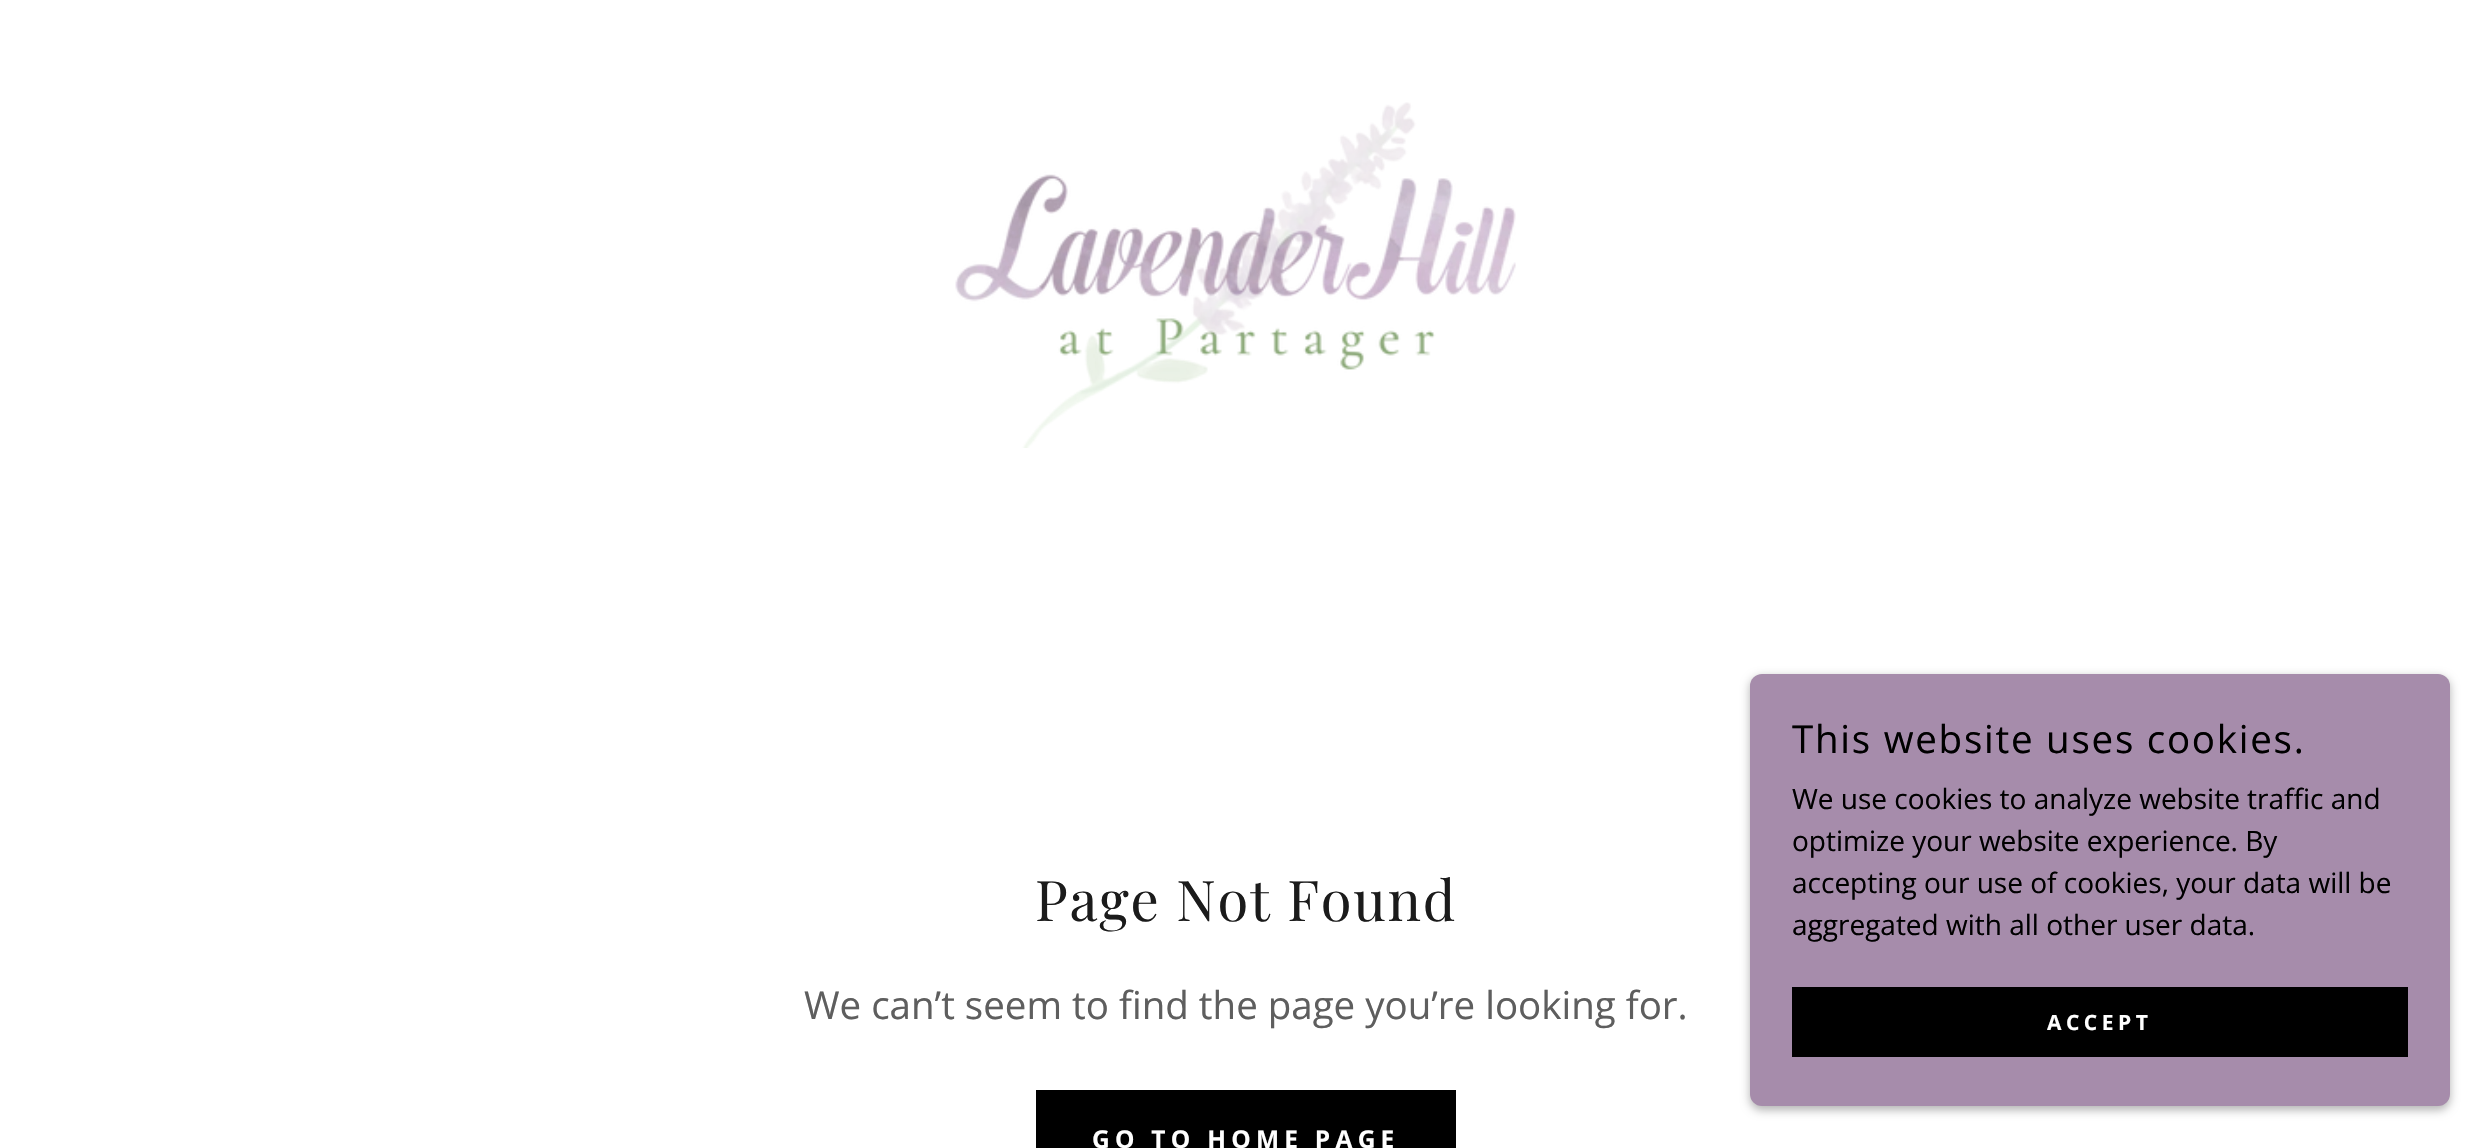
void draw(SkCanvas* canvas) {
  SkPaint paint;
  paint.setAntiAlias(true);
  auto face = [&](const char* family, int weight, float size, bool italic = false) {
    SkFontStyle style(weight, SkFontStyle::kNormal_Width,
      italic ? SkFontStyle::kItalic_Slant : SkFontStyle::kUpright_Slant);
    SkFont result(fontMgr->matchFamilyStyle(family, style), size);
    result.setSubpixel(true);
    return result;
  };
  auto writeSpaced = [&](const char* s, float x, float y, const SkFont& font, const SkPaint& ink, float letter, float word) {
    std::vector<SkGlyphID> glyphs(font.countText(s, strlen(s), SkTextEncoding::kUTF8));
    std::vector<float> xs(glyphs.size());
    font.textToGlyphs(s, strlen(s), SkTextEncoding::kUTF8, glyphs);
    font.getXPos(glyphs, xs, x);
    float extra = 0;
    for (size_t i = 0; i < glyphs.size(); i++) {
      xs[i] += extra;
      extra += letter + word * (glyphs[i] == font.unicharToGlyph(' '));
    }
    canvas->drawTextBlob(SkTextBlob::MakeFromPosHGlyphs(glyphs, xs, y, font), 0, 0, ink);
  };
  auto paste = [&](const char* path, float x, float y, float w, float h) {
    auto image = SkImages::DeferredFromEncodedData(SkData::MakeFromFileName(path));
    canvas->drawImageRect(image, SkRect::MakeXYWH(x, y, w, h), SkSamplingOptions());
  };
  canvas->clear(0xffffffff);
  paste("img/1.png", 955, 102, 561, 346);
  paint.setColor(0xff000000);
  canvas->drawRect(SkRect::MakeXYWH(1036, 1090, 420, 58), paint);
  paint.setColor(0x4d000000);
  paint.setMaskFilter(SkMaskFilter::MakeBlur(kNormal_SkBlurStyle, 5));
  canvas->drawRoundRect(SkRect::MakeXYWH(1750, 677, 700, 433), 12, 12, paint);
  paint.setMaskFilter(nullptr);
  paint.setColor(0xffa68cab);
  canvas->drawRoundRect(SkRect::MakeXYWH(1750, 674, 700, 432), 12, 12, paint);
  paint.setColor(0xff000000);
  canvas->drawRect(SkRect::MakeXYWH(1792, 987, 616, 70), paint);
  auto f0 = face("Playfair Display", 400, 56);
  paint.setColor(0xff1b1b1b);
  writeSpaced("Page Not Found", 1035, 921, f0, paint, 1.75f, 0);
  auto f1 = face("Open Sans", 400, 38.5f);
  paint.setColor(0xff5e5e5e);
  canvas->drawString("We can’t seem to find the page you’re looking for.", 804, 1019, f1, paint);
  auto f2 = face("Open Sans", 700, 24.5f);
  paint.setColor(0xffffffff);
  writeSpaced("GO TO HOME PAGE", 1092, 1148, f2, paint, 5.25f, 0);
  paint.setColor(0xff000000);
  writeSpaced("This website uses cookies.", 1792, 753, f1, paint, 1.75f, 0);
  auto f3 = face("Open Sans", 400, 28);
  {
    const struct { const char* s; float x, y; } items[] = {
      {"We use cookies to analyze website traffic and", 1792, 809},
      {"optimize your website experience. By", 1792, 851},
      {"accepting our use of cookies, your data will be", 1792, 893},
      {"aggregated with all other user data.", 1792, 935},
    };
    for (auto [s, x, y] : items) {
      canvas->drawString(s, x, y, f3, paint);
    }
  }
  auto f4 = face("Open Sans", 700, 21);
  paint.setColor(0xffffffff);
  writeSpaced("ACCEPT", 2047, 1030, f4, paint, 4.5f, 0);
}
